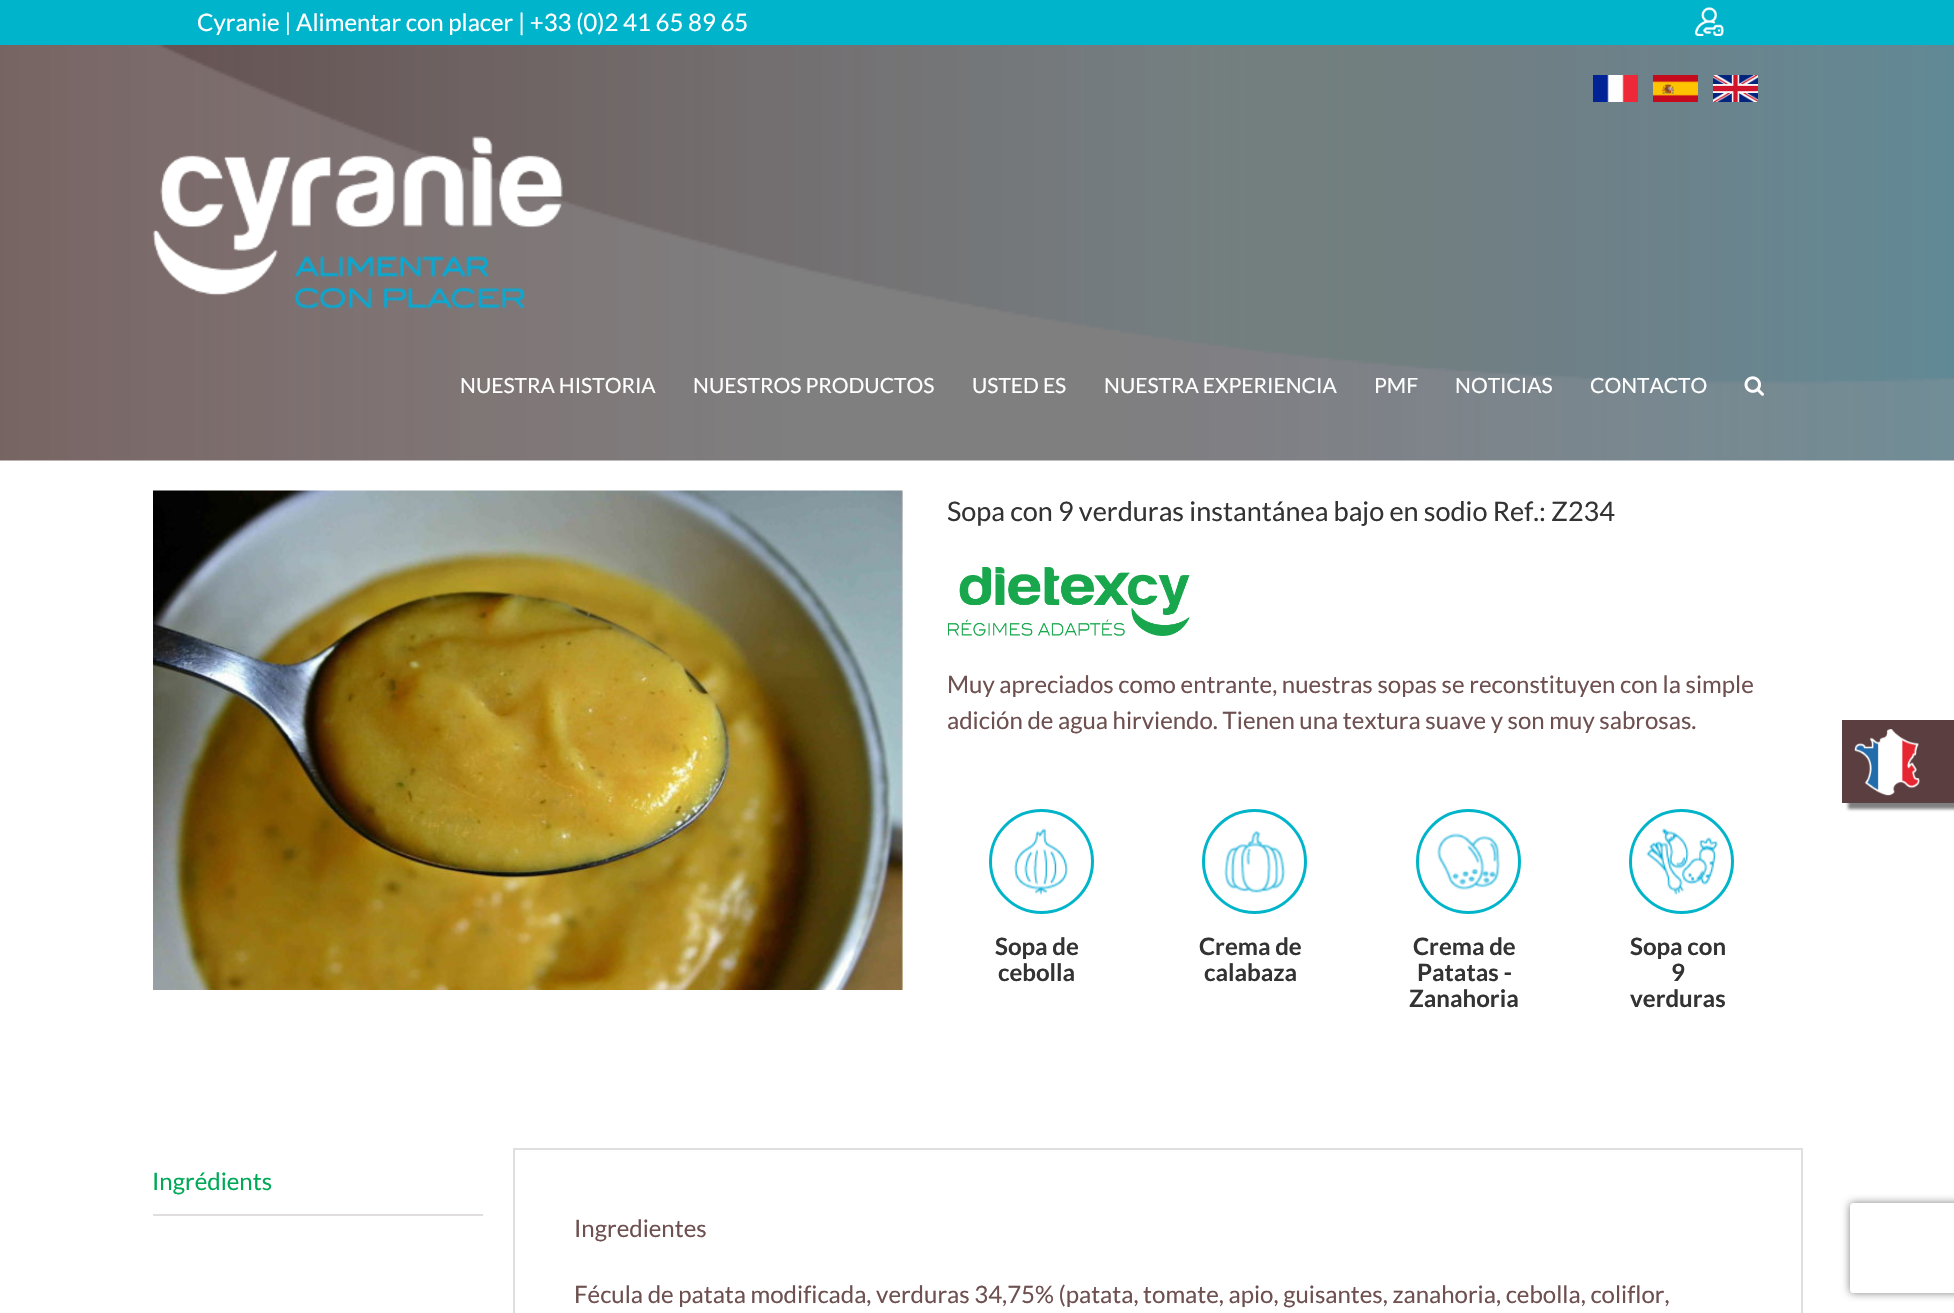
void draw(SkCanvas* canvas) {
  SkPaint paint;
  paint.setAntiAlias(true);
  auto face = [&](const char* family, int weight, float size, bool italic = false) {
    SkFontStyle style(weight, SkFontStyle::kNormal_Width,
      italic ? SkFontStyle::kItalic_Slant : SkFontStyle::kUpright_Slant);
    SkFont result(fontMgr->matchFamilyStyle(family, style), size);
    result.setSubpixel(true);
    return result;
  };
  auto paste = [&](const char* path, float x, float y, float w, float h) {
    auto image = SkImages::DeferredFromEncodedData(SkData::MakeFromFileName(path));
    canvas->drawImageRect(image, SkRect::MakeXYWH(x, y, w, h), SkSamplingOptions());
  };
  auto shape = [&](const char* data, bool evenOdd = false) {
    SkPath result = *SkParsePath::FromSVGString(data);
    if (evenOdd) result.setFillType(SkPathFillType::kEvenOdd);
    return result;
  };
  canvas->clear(0xffffffff);
  paint.setColor(0xff00b4cc);
  canvas->drawRect(SkRect::MakeXYWH(0, 0, 1954, 45), paint);
  paste("img/1.png", 1695, 7, 29, 29);
  paste("img/5.png", 0, 45, 1954, 416);
  paste("img/2.png", 1593, 75, 45, 27);
  paste("img/3.png", 1653, 75, 45, 27);
  paste("img/4.png", 1713, 75, 45, 27);
  paste("img/6.png", 152, 136, 411, 173);
  paste("img/7.png", 1744, 376, 20, 20);
  paste("img/8.png", 153, 490, 750, 500);
  paste("img/9.png", 948, 567, 242, 69);
  paint.setStroke(true);
  paint.setStrokeWidth(3);
  paint.setColor(0xff00b5c9);
  canvas->drawCircle(1041.5f, 861.5f, 51, paint);
  paste("img/10.png", 1014, 828, 54, 67);
  canvas->drawCircle(1254.5f, 861.5f, 51, paint);
  paste("img/11.png", 1224, 830, 62, 63);
  canvas->drawCircle(1468.5f, 861.5f, 51, paint);
  paste("img/12.png", 1437, 833, 63, 57);
  canvas->drawCircle(1681.5f, 861.5f, 51, paint);
  paste("img/13.png", 1646, 828, 72, 67);
  paint.setStroke(false);
  paint.setColor(0xffe0dede);
  canvas->drawRect(SkRect::MakeXYWH(153, 1214, 330, 2), paint);
  paint.setStroke(true);
  paint.setStrokeWidth(2);
  canvas->drawRect(SkRect::MakeXYWH(514, 1149, 1288, 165), paint);
  paint.setStroke(false);
  paint.setColor(0xff808080);
  paint.setMaskFilter(SkMaskFilter::MakeBlur(kNormal_SkBlurStyle, 1.5f));
  canvas->drawRect(SkRect::MakeXYWH(1848, 726, 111, 83), paint);
  paint.setMaskFilter(nullptr);
  paint.setColor(0xff5b3f40);
  canvas->drawRect(SkRect::MakeXYWH(1842, 720, 112, 83), paint);
  paste("img/14.png", 1854, 729, 66, 67);
  canvas->save();
  canvas->clipPath(shape("M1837 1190H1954V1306H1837ZM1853 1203H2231C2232.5 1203 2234 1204.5 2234 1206V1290C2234 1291.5 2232.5 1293 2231 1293H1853C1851.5 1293 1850 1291.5 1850 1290V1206C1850 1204.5 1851.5 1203 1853 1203Z", true), true);
  paint.setColor(0xff808080);
  paint.setMaskFilter(SkMaskFilter::MakeBlur(kNormal_SkBlurStyle, 4));
  canvas->drawRoundRect(SkRect::MakeXYWH(1850, 1203, 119, 90), 3, 3, paint);
  paint.setMaskFilter(nullptr);
  canvas->restore();
  auto f0 = face("Lato", 400, 24);
  paint.setColor(0xffffffff);
  canvas->drawString("Cyranie | Alimentar con placer | +33 (0)2 41 65 89 65", 197, 31, f0, paint);
  auto f1 = face("Lato", 400, 21);
  {
    const struct { const char* s; float x, y; } items[] = {
      {"NUESTRA HISTORIA", 460, 393},
      {"NUESTROS PRODUCTOS", 693, 393},
      {"USTED ES", 972, 393},
      {"NUESTRA EXPERIENCIA", 1104, 393},
      {"PMF", 1374, 393},
      {"NOTICIAS", 1455, 393},
      {"CONTACTO", 1590, 393},
    };
    for (auto [s, x, y] : items) {
      canvas->drawString(s, x, y, f1, paint);
    }
  }
  auto f2 = face("Lato", 400, 27);
  paint.setColor(0xff333333);
  canvas->drawString("Sopa con 9 verduras instantánea bajo en sodio Ref.: Z234", 947, 521, f2, paint);
  paint.setColor(0xff6e5050);
  canvas->drawString("Muy apreciados como entrante, nuestras sopas se reconstituyen con la simple", 947, 693, f0, paint);
  canvas->drawString("adición de agua hirviendo. Tienen una textura suave y son muy sabrosas.", 947, 729, f0, paint);
  auto f3 = face("Lato", 700, 24);
  paint.setColor(0xff333333);
  {
    const struct { const char* s; float x, y; } items[] = {
      {"Sopa de", 995, 955},
      {"cebolla", 998, 981},
      {"Crema de", 1199, 955},
      {"calabaza", 1204, 981},
      {"Crema de", 1413, 955},
      {"Patatas -", 1417, 981},
      {"Zanahoria", 1409, 1007},
      {"Sopa con", 1630, 955},
      {"9", 1671, 981},
      {"verduras", 1630, 1007},
    };
    for (auto [s, x, y] : items) {
      canvas->drawString(s, x, y, f3, paint);
    }
  }
  paint.setColor(0xff00a957);
  canvas->drawString("Ingrédients", 152, 1190, f0, paint);
  paint.setColor(0xff6e5050);
  canvas->drawString("Ingredientes", 574, 1237, f0, paint);
  canvas->drawString("Fécula de patata modificada, verduras 34,75% (patata, tomate, apio, guisantes, zanahoria, cebolla, coliflor,", 574, 1303, f0, paint);
}
